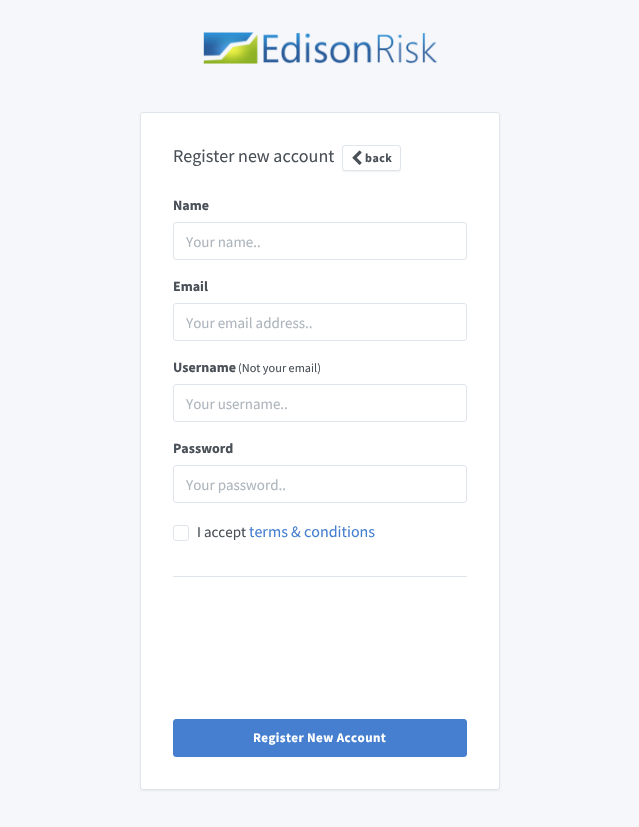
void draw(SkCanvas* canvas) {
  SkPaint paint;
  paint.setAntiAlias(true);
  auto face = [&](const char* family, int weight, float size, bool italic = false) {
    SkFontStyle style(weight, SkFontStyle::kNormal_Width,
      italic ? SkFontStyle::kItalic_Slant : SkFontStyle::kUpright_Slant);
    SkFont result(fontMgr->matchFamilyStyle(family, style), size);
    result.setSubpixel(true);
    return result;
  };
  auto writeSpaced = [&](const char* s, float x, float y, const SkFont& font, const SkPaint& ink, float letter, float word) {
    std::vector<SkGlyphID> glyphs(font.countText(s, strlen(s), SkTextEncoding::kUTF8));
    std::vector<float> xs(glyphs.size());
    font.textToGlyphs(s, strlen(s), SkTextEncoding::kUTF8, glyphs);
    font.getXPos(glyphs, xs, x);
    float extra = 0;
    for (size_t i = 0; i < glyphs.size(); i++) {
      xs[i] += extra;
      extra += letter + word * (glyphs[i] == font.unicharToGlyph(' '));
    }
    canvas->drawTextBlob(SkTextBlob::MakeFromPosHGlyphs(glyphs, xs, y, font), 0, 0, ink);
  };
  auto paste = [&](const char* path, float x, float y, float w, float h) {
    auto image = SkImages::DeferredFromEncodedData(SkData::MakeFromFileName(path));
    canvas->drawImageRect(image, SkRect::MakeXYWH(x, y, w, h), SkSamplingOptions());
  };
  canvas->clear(0xfff5f7fb);
  paste("img/1.png", 203, 32, 235, 32);
  paint.setColor(0x0d000000);
  paint.setMaskFilter(SkMaskFilter::MakeBlur(kNormal_SkBlurStyle, 1));
  canvas->drawRoundRect(SkRect::MakeXYWH(140, 113, 360, 678), 3, 3, paint);
  paint.setMaskFilter(nullptr);
  paint.setColor(0xffffffff);
  canvas->drawRoundRect(SkRect::MakeXYWH(140, 112, 360, 678), 3, 3, paint);
  paint.setStroke(true);
  paint.setStrokeWidth(1);
  paint.setColor(0x1f002864);
  canvas->drawRoundRect(SkRect::MakeXYWH(140.5f, 112.5f, 359, 677), 2.5f, 2.5f, paint);
  paint.setStroke(false);
  paint.setColor(0x0d000000);
  paint.setMaskFilter(SkMaskFilter::MakeBlur(kNormal_SkBlurStyle, 0.5f));
  canvas->drawRoundRect(SkRect::MakeXYWH(342, 146, 59, 26), 3, 3, paint);
  paint.setMaskFilter(nullptr);
  paint.setColor(0xffffffff);
  canvas->drawRoundRect(SkRect::MakeXYWH(342, 145, 59, 26), 3, 3, paint);
  paint.setStroke(true);
  paint.setColor(0x1f002864);
  canvas->drawRoundRect(SkRect::MakeXYWH(342.5f, 145.5f, 58, 25), 2.5f, 2.5f, paint);
  paste("img/2.png", 352, 150, 10, 15);
  paint.setColor(0xffe0e5ec);
  canvas->drawRoundRect(SkRect::MakeXYWH(173.5f, 222.5f, 293, 37), 2.5f, 2.5f, paint);
  canvas->drawRoundRect(SkRect::MakeXYWH(173.5f, 303.5f, 293, 37), 2.5f, 2.5f, paint);
  canvas->drawRoundRect(SkRect::MakeXYWH(173.5f, 384.5f, 293, 37), 2.5f, 2.5f, paint);
  canvas->drawRoundRect(SkRect::MakeXYWH(173.5f, 465.5f, 293, 37), 2.5f, 2.5f, paint);
  canvas->drawRoundRect(SkRect::MakeXYWH(173.5f, 525.5f, 15, 15), 2.5f, 2.5f, paint);
  paint.setStroke(false);
  canvas->drawRect(SkRect::MakeXYWH(173, 576, 294, 1), paint);
  paint.setColor(0xff467fcf);
  canvas->drawRoundRect(SkRect::MakeXYWH(173.5f, 719.5f, 293, 37), 2.5f, 2.5f, paint);
  paint.setStroke(true);
  canvas->drawRoundRect(SkRect::MakeXYWH(173.5f, 719.5f, 293, 37), 2.5f, 2.5f, paint);
  auto f0 = face("Source Sans Pro", 400, 18);
  paint.setStroke(false);
  paint.setColor(0xff495057);
  canvas->drawString("Register new account", 173, 162, f0, paint);
  auto f1 = face("Source Sans Pro", 700, 12);
  writeSpaced("back", 365, 162, f1, paint, 0.5f, 0);
  auto f2 = face("Source Sans Pro", 700, 14);
  canvas->drawString("Name", 173, 210, f2, paint);
  auto f3 = face("Source Sans Pro", 400, 15);
  paint.setColor(0xffadb5bd);
  canvas->drawString("Your name..", 186, 247, f3, paint);
  paint.setColor(0xff495057);
  canvas->drawString("Email", 173, 291, f2, paint);
  paint.setColor(0xffadb5bd);
  canvas->drawString("Your email address..", 186, 328, f3, paint);
  paint.setColor(0xff495057);
  canvas->drawString("Username", 173, 372, f2, paint);
  auto f4 = face("Source Sans Pro", 400, 12.25f);
  canvas->drawString("(Not your email)", 238, 372, f4, paint);
  paint.setColor(0xffadb5bd);
  canvas->drawString("Your username..", 186, 409, f3, paint);
  paint.setColor(0xff495057);
  canvas->drawString("Password", 173, 453, f2, paint);
  paint.setColor(0xffadb5bd);
  canvas->drawString("Your password..", 186, 490, f3, paint);
  paint.setColor(0xff495057);
  canvas->drawString("I accept", 197, 537, f3, paint);
  auto f5 = face("Source Sans Pro", 400, 16);
  paint.setColor(0xff467fcf);
  canvas->drawString("terms & conditions", 249, 537, f5, paint);
  auto f6 = face("Source Sans Pro", 700, 13);
  paint.setColor(0xffffffff);
  writeSpaced("Register New Account", 253, 742, f6, paint, 0.4f, 0);
}
